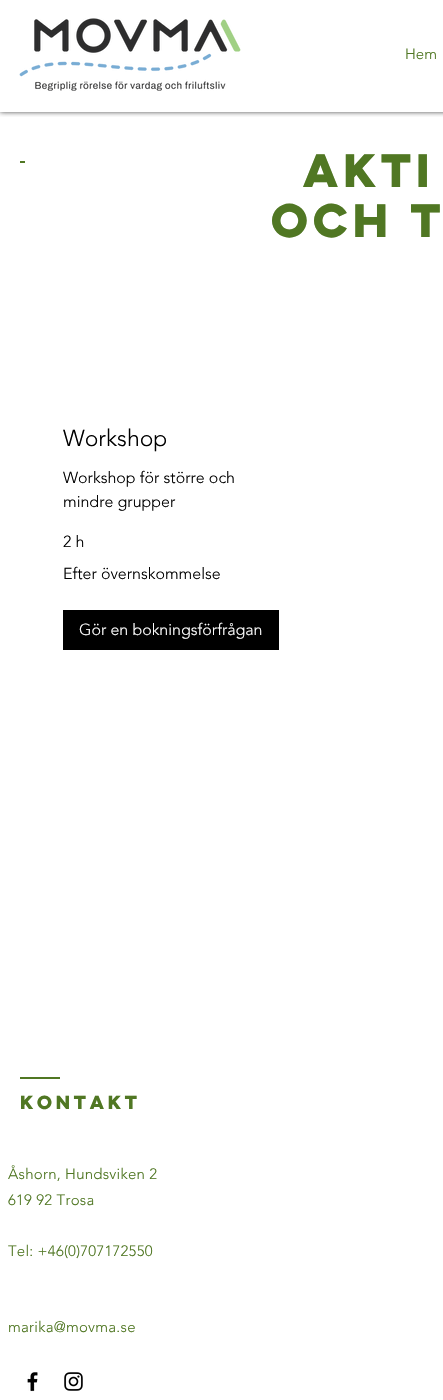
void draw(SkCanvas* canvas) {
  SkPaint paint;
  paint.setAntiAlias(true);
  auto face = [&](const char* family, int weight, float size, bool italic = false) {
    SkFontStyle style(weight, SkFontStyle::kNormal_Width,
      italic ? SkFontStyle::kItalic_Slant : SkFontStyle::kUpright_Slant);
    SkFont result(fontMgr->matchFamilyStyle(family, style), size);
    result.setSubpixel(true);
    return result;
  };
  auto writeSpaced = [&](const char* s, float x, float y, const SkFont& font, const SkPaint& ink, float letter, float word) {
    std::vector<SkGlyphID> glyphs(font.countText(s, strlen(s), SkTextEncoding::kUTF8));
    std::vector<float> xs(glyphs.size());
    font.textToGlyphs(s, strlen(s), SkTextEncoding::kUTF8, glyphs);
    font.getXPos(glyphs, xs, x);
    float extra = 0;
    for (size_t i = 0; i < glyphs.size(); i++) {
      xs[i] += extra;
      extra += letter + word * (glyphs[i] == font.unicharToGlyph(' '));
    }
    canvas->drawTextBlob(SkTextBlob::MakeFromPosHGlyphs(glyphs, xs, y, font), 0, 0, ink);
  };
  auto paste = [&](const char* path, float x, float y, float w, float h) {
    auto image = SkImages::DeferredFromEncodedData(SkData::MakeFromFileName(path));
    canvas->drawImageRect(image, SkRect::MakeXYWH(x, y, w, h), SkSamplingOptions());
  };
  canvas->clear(0xffffffff);
  canvas->save();
  canvas->clipRect(SkRect::MakeXYWH(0, 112, 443, 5));
  paint.setColor(0xb3000000);
  paint.setMaskFilter(SkMaskFilter::MakeBlur(kNormal_SkBlurStyle, 2.5f));
  canvas->drawRect(SkRect::MakeXYWH(0, 0, 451, 112), paint);
  paint.setMaskFilter(nullptr);
  canvas->restore();
  paste("img/1.png", 19, 18, 222, 73);
  {
    const struct { float x, y, w, h; SkColor color; } items[] = {
      {20, 161, 5, 2, 0xff507723},
      {63, 610, 216, 40, 0xff000000},
      {20, 1077, 40, 2, 0xff507723},
    };
    for (auto [x, y, w, h, color] : items) {
      paint.setColor(color);
      canvas->drawRect(SkRect::MakeXYWH(x, y, w, h), paint);
    }
  }
  paste("img/2.png", 27, 1372, 11, 20);
  paste("img/3.png", 64, 1372, 19, 19);
  auto f0 = face("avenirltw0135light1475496", 300, 15);
  canvas->drawString("Hem", 405, 59, f0, paint);
  auto f1 = face("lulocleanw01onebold", 700, 42);
  writeSpaced("Akti", 303, 187, f1, paint, -4.25f, 0);
  writeSpaced("och T", 271, 237, f1, paint, -4.25f, 0);
  auto f2 = face("avenirltw0135light1475496", 300, 23);
  paint.setColor(0xff000000);
  canvas->drawString("Workshop", 63, 446, f2, paint);
  auto f3 = face("avenirltw0135light1475496", 300, 16);
  {
    const struct { const char* s; float x, y; } items[] = {
      {"Workshop för större och", 63, 483},
      {"mindre grupper", 63, 507},
      {"2 h", 63, 547},
      {"Efter övernskommelse", 63, 579},
    };
    for (auto [s, x, y] : items) {
      canvas->drawString(s, x, y, f3, paint);
    }
  }
  paint.setColor(0xffffffff);
  canvas->drawString("Gör en bokningsförfrågan", 79, 635, f3, paint);
  auto f4 = face("lulocleanw01onebold", 700, 17);
  paint.setColor(0xff507723);
  canvas->drawString("Kontakt", 20, 1109, f4, paint);
  {
    const struct { const char* s; float x, y; } items[] = {
      {"Åshorn, Hundsviken 2", 8, 1179},
      {"619 92 Trosa", 8, 1205},
      {"Tel: +46(0)707172550", 8, 1256},
      {"marika@movma.se", 8, 1332},
    };
    for (auto [s, x, y] : items) {
      writeSpaced(s, x, y, f0, paint, 0.25f, 0);
    }
  }
}
